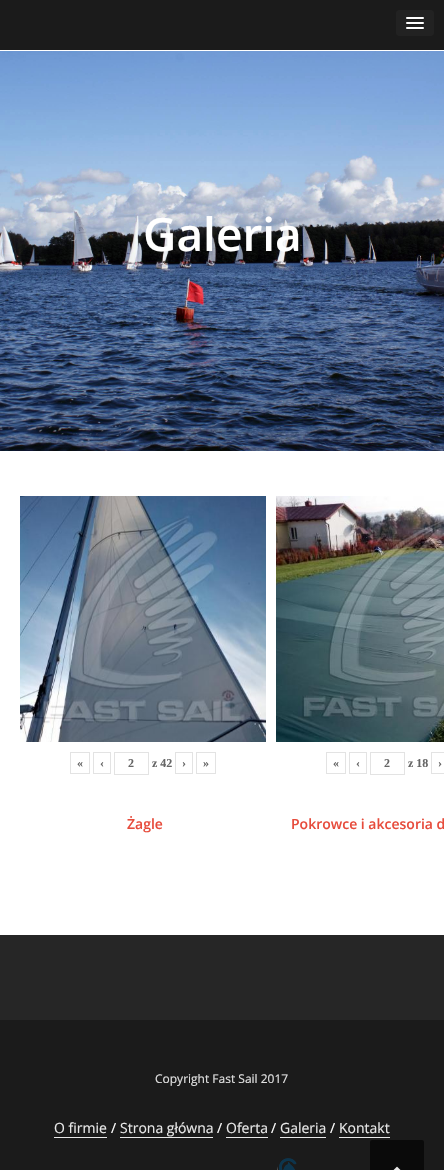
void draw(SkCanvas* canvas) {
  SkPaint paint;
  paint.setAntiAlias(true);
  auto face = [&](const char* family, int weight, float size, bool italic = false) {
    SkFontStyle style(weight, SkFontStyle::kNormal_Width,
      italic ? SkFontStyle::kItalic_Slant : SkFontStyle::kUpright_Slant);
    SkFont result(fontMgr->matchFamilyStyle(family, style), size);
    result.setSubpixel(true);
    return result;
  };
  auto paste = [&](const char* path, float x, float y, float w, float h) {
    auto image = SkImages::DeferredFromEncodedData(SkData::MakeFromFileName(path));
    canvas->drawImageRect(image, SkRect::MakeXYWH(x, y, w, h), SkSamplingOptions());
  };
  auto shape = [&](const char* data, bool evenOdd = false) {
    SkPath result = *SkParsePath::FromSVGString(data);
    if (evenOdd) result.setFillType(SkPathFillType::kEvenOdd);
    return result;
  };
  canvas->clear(0xffffffff);
  paste("img/1.png", 0, 51, 444, 400);
  paint.setColor(0xff1b1b1b);
  canvas->drawRect(SkRect::MakeXYWH(0, 0, 444, 50), paint);
  paint.setColor(0xff222222);
  canvas->drawRoundRect(SkRect::MakeXYWH(396, 10, 38, 26), 4, 4, paint);
  paint.setColor(0xff1a1a1a);
  canvas->drawPath(shape("M406 18.5C405 20.5 409.5 20 409.5 20H420.5C420.5 20 425 20.5 424 18.5C423 19.5 416.5 19 415 19C413.5 19 407 19.5 406 18.5Z"), paint);
  paint.setColor(0xffffffff);
  canvas->drawRoundRect(SkRect::MakeXYWH(406, 17, 18, 2), 1, 1, paint);
  paint.setColor(0xff1a1a1a);
  canvas->drawPath(shape("M406 23.5C405 25.5 409.5 25 409.5 25H420.5C420.5 25 425 25.5 424 23.5C423 24.5 416.5 24 415 24C413.5 24 407 24.5 406 23.5Z"), paint);
  paint.setColor(0xffffffff);
  canvas->drawRoundRect(SkRect::MakeXYWH(406, 22, 18, 2), 1, 1, paint);
  paint.setColor(0xff1a1a1a);
  canvas->drawPath(shape("M406 28.5C405 30.5 409.5 30 409.5 30H420.5C420.5 30 425 30.5 424 28.5C423 29.5 416.5 29 415 29C413.5 29 407 29.5 406 28.5Z"), paint);
  paint.setColor(0xffffffff);
  canvas->drawRoundRect(SkRect::MakeXYWH(406, 27, 18, 2), 1, 1, paint);
  paste("img/2.png", 20, 496, 246, 246);
  paint.setStroke(true);
  paint.setStrokeWidth(1);
  paint.setColor(0xffe3e3e3);
  canvas->drawRect(SkRect::MakeXYWH(70.5f, 752.5f, 19, 21), paint);
  canvas->drawRect(SkRect::MakeXYWH(93.5f, 752.5f, 17, 21), paint);
  canvas->drawRect(SkRect::MakeXYWH(114.5f, 752.5f, 34, 22), paint);
  canvas->drawRect(SkRect::MakeXYWH(175.5f, 752.5f, 17, 21), paint);
  canvas->drawRect(SkRect::MakeXYWH(196.5f, 752.5f, 19, 21), paint);
  paste("img/3.png", 276, 496, 168, 246);
  canvas->drawRect(SkRect::MakeXYWH(326.5f, 752.5f, 19, 21), paint);
  canvas->drawRect(SkRect::MakeXYWH(349.5f, 752.5f, 17, 21), paint);
  canvas->drawRect(SkRect::MakeXYWH(370.5f, 752.5f, 34, 22), paint);
  canvas->drawRect(SkRect::MakeXYWH(431.5f, 752.5f, 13, 21), paint);
  paint.setStroke(false);
  {
    const struct { float x, y, w, h; SkColor color; } items[] = {
      {0, 935, 444, 85, 0xff262626},
      {0, 1020, 444, 150, 0xff1b1b1b},
      {54, 1137, 53, 1, 0xffe8e8e8},
      {120, 1137, 93, 1, 0xffe8e8e8},
      {226, 1137, 42, 1, 0xffe8e8e8},
      {280, 1137, 46, 1, 0xffe8e8e8},
      {339, 1137, 51, 1, 0xffe8e8e8},
    };
    for (auto [x, y, w, h, color] : items) {
      paint.setColor(color);
      canvas->drawRect(SkRect::MakeXYWH(x, y, w, h), paint);
    }
  }
  paste("img/4.png", 277, 1158, 20, 12);
  paint.setColor(0xff0a0a0a);
  canvas->drawRoundRect(SkRect::MakeXYWH(370, 1140, 54, 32), 2, 2, paint);
  paste("img/5.png", 393, 1166, 8, 4);
  auto f0 = face("Open Sans", 600, 46);
  paint.setColor(0xffffffff);
  canvas->drawString("Galeria", 143, 251, f0, paint);
  auto f1 = face("Liberation Serif", 700, 12);
  paint.setColor(0xff666666);
  {
    const struct { const char* s; float x, y; } items[] = {
      {"«", 77, 767},
      {"‹", 100, 767},
      {"2", 128, 767},
      {"z 42", 152, 767},
      {"›", 182, 767},
      {"»", 203, 767},
      {"«", 333, 767},
      {"‹", 356, 767},
      {"2", 384, 767},
      {"z 18", 408, 767},
      {"›", 438, 767},
    };
    for (auto [s, x, y] : items) {
      canvas->drawString(s, x, y, f1, paint);
    }
  }
  auto f2 = face("Open Sans", 600, 14);
  paint.setColor(0xffe74c3c);
  canvas->drawString("Żagle", 127, 829, f2, paint);
  canvas->drawString("Pokrowce i akcesoria d", 291, 829, f2, paint);
  auto f3 = face("Open Sans", 400, 12);
  paint.setColor(0xffe1e1e1);
  canvas->drawString("Copyright Fast Sail 2017", 155, 1083, f3, paint);
  auto f4 = face("Open Sans", 400, 14);
  paint.setColor(0xffe8e8e8);
  canvas->drawString("O firmie", 54, 1133, f4, paint);
  paint.setColor(0xffffffff);
  canvas->drawString("/", 111, 1133, f4, paint);
  paint.setColor(0xffe8e8e8);
  canvas->drawString("Strona główna", 120, 1133, f4, paint);
  paint.setColor(0xffffffff);
  canvas->drawString("/", 217, 1133, f4, paint);
  paint.setColor(0xffe8e8e8);
  canvas->drawString("Oferta", 226, 1133, f4, paint);
  paint.setColor(0xffffffff);
  canvas->drawString("/", 271, 1133, f4, paint);
  paint.setColor(0xffe8e8e8);
  canvas->drawString("Galeria", 280, 1133, f4, paint);
  paint.setColor(0xffffffff);
  canvas->drawString("/", 330, 1133, f4, paint);
  paint.setColor(0xffe8e8e8);
  canvas->drawString("Kontakt", 339, 1133, f4, paint);
}
